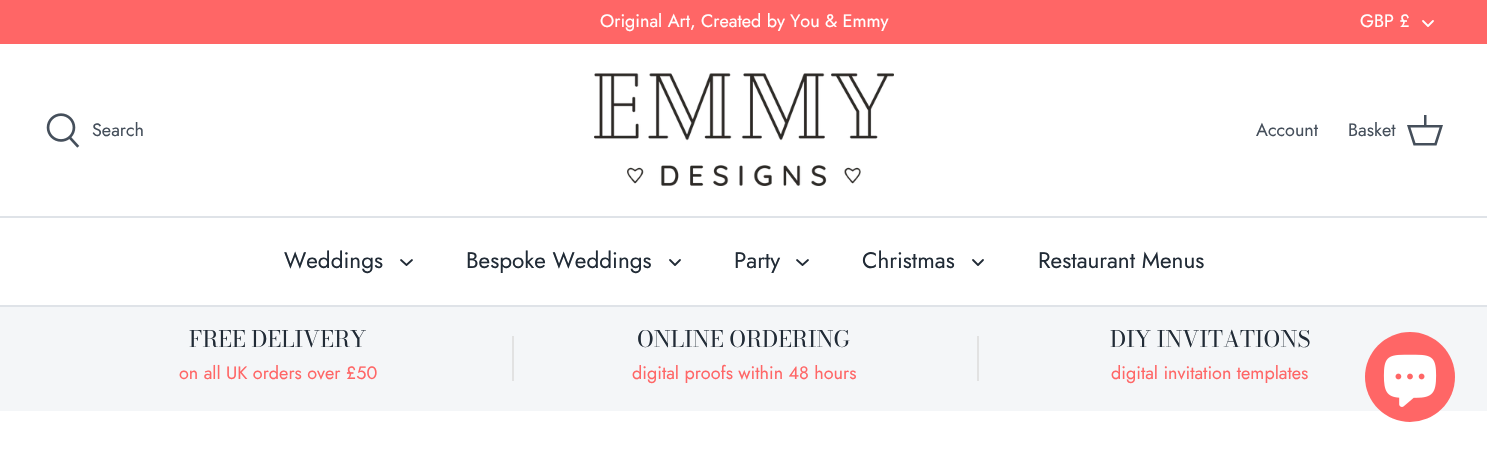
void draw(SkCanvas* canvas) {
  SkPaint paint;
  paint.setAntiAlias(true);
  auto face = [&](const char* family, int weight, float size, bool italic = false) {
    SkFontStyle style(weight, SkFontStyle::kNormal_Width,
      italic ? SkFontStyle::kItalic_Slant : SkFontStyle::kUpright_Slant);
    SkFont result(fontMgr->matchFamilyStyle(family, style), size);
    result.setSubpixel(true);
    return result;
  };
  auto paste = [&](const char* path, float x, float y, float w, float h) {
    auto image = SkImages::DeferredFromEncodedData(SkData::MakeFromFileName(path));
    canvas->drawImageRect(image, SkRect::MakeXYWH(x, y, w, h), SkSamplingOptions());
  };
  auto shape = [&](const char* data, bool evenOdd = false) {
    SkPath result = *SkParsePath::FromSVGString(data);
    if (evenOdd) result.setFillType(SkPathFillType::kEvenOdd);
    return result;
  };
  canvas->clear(0xffffffff);
  paint.setColor(0xffff6666);
  canvas->drawRect(SkRect::MakeXYWH(0, 0, 1487, 44), paint);
  paint.setStroke(true);
  paint.setStrokeWidth(1.8f);
  paint.setStrokeCap(SkPaint::kRound_Cap);
  paint.setStrokeJoin(SkPaint::kRound_Join);
  paint.setColor(0xffffffff);
  canvas->drawPath(shape("M1423 21L1428 26L1433 21"), paint);
  paint.setStroke(false);
  paint.setColor(0xffdfe3e8);
  canvas->drawRect(SkRect::MakeXYWH(0, 216, 1487, 2), paint);
  paste("img/1.png", 46, 113, 34, 35);
  paste("img/2.png", 594, 73, 300, 113);
  paint.setColor(0xff454f5b);
  canvas->drawPath(shape("M1424 125V115H1426.5V125H1443L1436.5 145.5H1413.5L1407 125ZM1410.5 127.5L1415.5 143H1434.5L1439.5 127.5Z"), paint);
  paint.setColor(0xffdfe3e8);
  canvas->drawRect(SkRect::MakeXYWH(0, 305, 1487, 2), paint);
  paint.setStroke(true);
  paint.setColor(0xff212b36);
  canvas->drawPath(shape("M401 260L406.5 265L412 260"), paint);
  canvas->drawPath(shape("M670 260L675 265L680 260"), paint);
  canvas->drawPath(shape("M797 260L802.5 265L808 260"), paint);
  canvas->drawPath(shape("M973 260L978 265L983 260"), paint);
  paint.setStroke(false);
  {
    const struct { float x, y, w, h; SkColor color; } items[] = {
      {0, 307, 1487, 104, 0xfff4f6f8},
      {512, 336, 2, 45, 0xffe2e2e2},
      {977, 336, 2, 45, 0xffe2e2e2},
    };
    for (auto [x, y, w, h, color] : items) {
      paint.setColor(color);
      canvas->drawRect(SkRect::MakeXYWH(x, y, w, h), paint);
    }
  }
  paint.setColor(0xffff6666);
  canvas->drawCircle(1410, 377, 45, paint);
  paste("img/3.png", 1383, 354, 54, 53);
  auto f0 = face("Jost", 400, 18);
  paint.setColor(0xffffffff);
  canvas->drawString("Original Art, Created by You & Emmy", 600, 27, f0, paint);
  canvas->drawString("GBP £", 1360, 27, f0, paint);
  paint.setColor(0xff454f5b);
  {
    const struct { const char* s; float x, y; } items[] = {
      {"Search", 92, 136},
      {"Account", 1256, 136},
      {"Basket", 1348, 136},
    };
    for (auto [s, x, y] : items) {
      canvas->drawString(s, x, y, f0, paint);
    }
  }
  auto f1 = face("Jost", 400, 22.5f);
  paint.setColor(0xff212b36);
  {
    const struct { const char* s; float x, y; } items[] = {
      {"Weddings", 284, 268},
      {"Bespoke Weddings", 466, 268},
      {"Party", 734, 268},
      {"Christmas", 862, 268},
      {"Restaurant Menus", 1038, 268},
    };
    for (auto [s, x, y] : items) {
      canvas->drawString(s, x, y, f1, paint);
    }
  }
  auto f2 = face("Bodoni Moda", 400, 22.5f);
  canvas->drawString("FREE DELIVERY", 189, 347, f2, paint);
  paint.setColor(0xffff6666);
  canvas->drawString("on all UK orders over £50", 179, 379, f0, paint);
  paint.setColor(0xff212b36);
  canvas->drawString("ONLINE ORDERING", 637, 347, f2, paint);
  paint.setColor(0xffff6666);
  canvas->drawString("digital proofs within 48 hours", 632, 379, f0, paint);
  paint.setColor(0xff212b36);
  canvas->drawString("DIY INVITATIONS", 1110, 347, f2, paint);
  paint.setColor(0xffff6666);
  canvas->drawString("digital invitation templates", 1111, 379, f0, paint);
}
